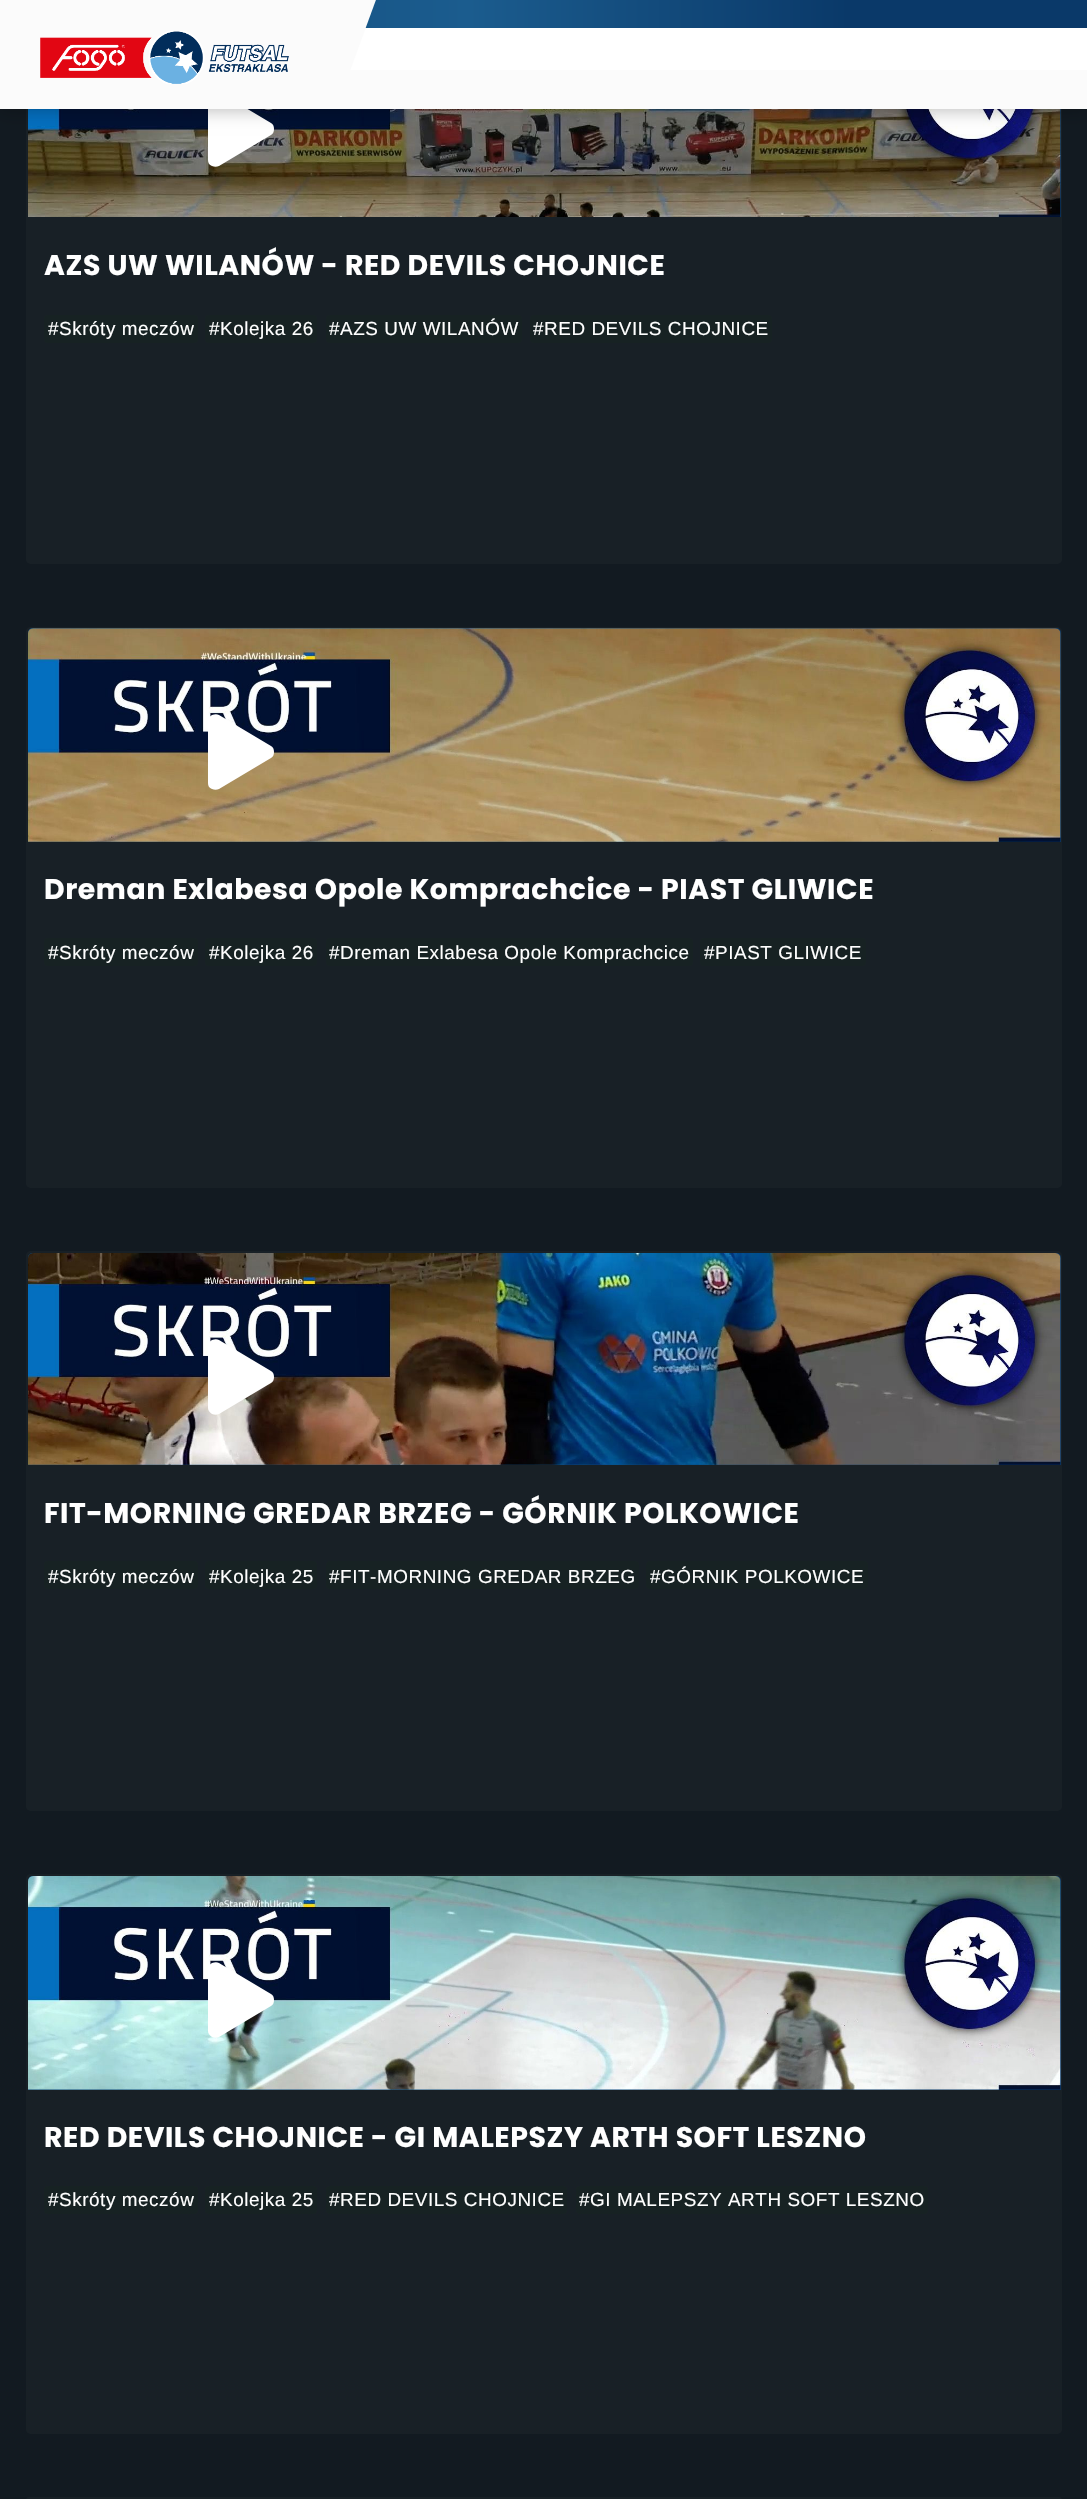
void draw(SkCanvas* canvas) {
  SkPaint paint;
  paint.setAntiAlias(true);
  auto face = [&](const char* family, int weight, float size, bool italic = false) {
    SkFontStyle style(weight, SkFontStyle::kNormal_Width,
      italic ? SkFontStyle::kItalic_Slant : SkFontStyle::kUpright_Slant);
    SkFont result(fontMgr->matchFamilyStyle(family, style), size);
    result.setSubpixel(true);
    return result;
  };
  auto writeSpaced = [&](const char* s, float x, float y, const SkFont& font, const SkPaint& ink, float letter, float word) {
    std::vector<SkGlyphID> glyphs(font.countText(s, strlen(s), SkTextEncoding::kUTF8));
    std::vector<float> xs(glyphs.size());
    font.textToGlyphs(s, strlen(s), SkTextEncoding::kUTF8, glyphs);
    font.getXPos(glyphs, xs, x);
    float extra = 0;
    for (size_t i = 0; i < glyphs.size(); i++) {
      xs[i] += extra;
      extra += letter + word * (glyphs[i] == font.unicharToGlyph(' '));
    }
    canvas->drawTextBlob(SkTextBlob::MakeFromPosHGlyphs(glyphs, xs, y, font), 0, 0, ink);
  };
  auto paste = [&](const char* path, float x, float y, float w, float h) {
    auto image = SkImages::DeferredFromEncodedData(SkData::MakeFromFileName(path));
    canvas->drawImageRect(image, SkRect::MakeXYWH(x, y, w, h), SkSamplingOptions());
  };
  auto shape = [&](const char* data, bool evenOdd = false) {
    SkPath result = *SkParsePath::FromSVGString(data);
    if (evenOdd) result.setFillType(SkPathFillType::kEvenOdd);
    return result;
  };
  canvas->clear(0xff121a21);
  paint.setColor(0xff182026);
  canvas->drawRoundRect(SkRect::MakeXYWH(26, 4, 1036, 560), 5, 5, paint);
  {
    const SkColor colors[] = {0xff0f4878, 0xff1b5c8e, 0xff0a3969};
    const float stops[] = {0, 0.43f, 0.78f};
    const SkPoint ends[] = {{28, 139}, {1061, 139}};
    paint.setShader(SkGradientShader::MakeLinear(ends, colors, stops, 3, SkTileMode::kClamp));
    paint.setAlpha(255);
  }
  canvas->drawRect(SkRect::MakeXYWH(1060, 109, 1, 108), paint);
  paste("img/2.png", 28, 109, 1033, 108);
  paint.setShader(nullptr);
  paint.setColor(0xffffffff);
  canvas->drawPath(shape("M271 123C273 124 274 126 274 129C274 132 273 134 271 135L219 166C217 167 214 167 212 166C209 165 208 163 208 160V98C208 95 210 93 212 92C215 91 217 91 219 92Z"), paint);
  paint.setColor(0x4d000000);
  paint.setMaskFilter(SkMaskFilter::MakeBlur(kNormal_SkBlurStyle, 9));
  canvas->drawRect(SkRect::MakeXYWH(0, -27, 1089, 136), paint);
  paint.setMaskFilter(nullptr);
  paint.setColor(0xfffbfbfb);
  canvas->drawRect(SkRect::MakeXYWH(336, 70, 751, 39), paint);
  {
    const SkColor colors[] = {0xff0f4878, 0xff1b5c8e, 0xff0a3969};
    const float stops[] = {0, 0.43f, 0.78f};
    const SkPoint ends[] = {{0, 14}, {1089, 14}};
    paint.setShader(SkGradientShader::MakeLinear(ends, colors, stops, 3, SkTileMode::kClamp));
    paint.setAlpha(255);
  }
  canvas->drawRect(SkRect::MakeXYWH(365, 0, 722, 28), paint);
  paint.setShader(nullptr);
  paint.setColor(0xffffffff);
  canvas->drawRect(SkRect::MakeXYWH(350, 28, 737, 42), paint);
  paint.setColor(0xfffbfbfb);
  canvas->drawPath(shape("M-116-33H388L336 109H-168Z"), paint);
  paste("img/1.png", 40, 31, 249, 53);
  paint.setColor(0xff172223);
  canvas->drawRoundRect(SkRect::MakeXYWH(44, 315, 154, 28), 4, 4, paint);
  canvas->drawRoundRect(SkRect::MakeXYWH(205, 315, 112, 28), 4, 4, paint);
  canvas->drawRoundRect(SkRect::MakeXYWH(326, 315, 196, 28), 4, 4, paint);
  canvas->drawRoundRect(SkRect::MakeXYWH(530, 315, 242, 28), 4, 4, paint);
  paint.setColor(0xff182026);
  canvas->drawRoundRect(SkRect::MakeXYWH(26, 627, 1036, 561), 5, 5, paint);
  {
    const SkColor colors[] = {0xff0f4878, 0xff1b5c8e, 0xff0a3969};
    const float stops[] = {0, 0.43f, 0.78f};
    const SkPoint ends[] = {{28, 762}, {1061, 762}};
    paint.setShader(SkGradientShader::MakeLinear(ends, colors, stops, 3, SkTileMode::kClamp));
    paint.setAlpha(255);
  }
  canvas->drawPath(shape("M33 628H1056C1059 628 1061 630 1061 633V842H28V633C28 630 30 628 33 628Z"), paint);
  paste("img/3.png", 28, 628, 1033, 214);
  paint.setShader(nullptr);
  paint.setColor(0xffffffff);
  canvas->drawPath(shape("M271 746C273 747 274 749 274 752C274 755 273 757 271 758L219 789C217 790 214 790 212 789C209 788 208 786 208 783V721C208 718 210 716 212 715C215 714 217 714 219 715Z"), paint);
  paint.setColor(0xff172223);
  canvas->drawRoundRect(SkRect::MakeXYWH(44, 938, 154, 28), 4, 4, paint);
  canvas->drawRoundRect(SkRect::MakeXYWH(205, 938, 112, 28), 4, 4, paint);
  canvas->drawRoundRect(SkRect::MakeXYWH(326, 938, 367, 28), 4, 4, paint);
  canvas->drawRoundRect(SkRect::MakeXYWH(700, 938, 166, 28), 4, 4, paint);
  paint.setColor(0xff182026);
  canvas->drawRoundRect(SkRect::MakeXYWH(26, 1251, 1036, 560), 5, 5, paint);
  {
    const SkColor colors[] = {0xff0f4878, 0xff1b5c8e, 0xff0a3969};
    const float stops[] = {0, 0.43f, 0.78f};
    const SkPoint ends[] = {{28, 1387}, {1061, 1387}};
    paint.setShader(SkGradientShader::MakeLinear(ends, colors, stops, 3, SkTileMode::kClamp));
    paint.setAlpha(255);
  }
  canvas->drawPath(shape("M33 1253H1056C1059 1253 1061 1255 1061 1258V1465H28V1258C28 1255 30 1253 33 1253Z"), paint);
  paste("img/4.png", 28, 1253, 1033, 212);
  paint.setShader(nullptr);
  paint.setColor(0xffffffff);
  canvas->drawPath(shape("M271 1371C273 1372 274 1374 274 1377C274 1380 273 1382 271 1383L219 1414C217 1415 214 1415 212 1414C209 1412 208 1410 208 1408V1346C208 1343 210 1341 212 1340C215 1339 217 1339 219 1340Z"), paint);
  paint.setColor(0xff172223);
  canvas->drawRoundRect(SkRect::MakeXYWH(44, 1561, 154, 28), 4, 4, paint);
  canvas->drawRoundRect(SkRect::MakeXYWH(205, 1561, 112, 28), 4, 4, paint);
  canvas->drawRoundRect(SkRect::MakeXYWH(326, 1561, 313, 28), 4, 4, paint);
  canvas->drawRoundRect(SkRect::MakeXYWH(646, 1561, 222, 28), 4, 4, paint);
  paint.setColor(0xff182026);
  canvas->drawRoundRect(SkRect::MakeXYWH(26, 1874, 1036, 560), 5, 5, paint);
  {
    const SkColor colors[] = {0xff0f4878, 0xff1b5c8e, 0xff0a3969};
    const float stops[] = {0, 0.43f, 0.78f};
    const SkPoint ends[] = {{28, 2010}, {1061, 2010}};
    paint.setShader(SkGradientShader::MakeLinear(ends, colors, stops, 3, SkTileMode::kClamp));
    paint.setAlpha(255);
  }
  canvas->drawPath(shape("M33 1876H1056C1059 1876 1061 1878 1061 1881V2090H28V1881C28 1878 30 1876 33 1876Z"), paint);
  paste("img/5.png", 28, 1876, 1033, 214);
  paint.setShader(nullptr);
  paint.setColor(0xffffffff);
  canvas->drawPath(shape("M271 1994C273 1995 274 1997 274 2000C274 2003 273 2005 271 2006L219 2037C217 2038 214 2038 212 2037C209 2035 208 2033 208 2031V1969C208 1966 210 1964 212 1963C215 1962 217 1962 219 1963Z"), paint);
  paint.setColor(0xff172223);
  canvas->drawRoundRect(SkRect::MakeXYWH(44, 2186, 154, 28), 4, 4, paint);
  canvas->drawRoundRect(SkRect::MakeXYWH(205, 2186, 112, 28), 4, 4, paint);
  canvas->drawRoundRect(SkRect::MakeXYWH(326, 2186, 241, 28), 4, 4, paint);
  canvas->drawRoundRect(SkRect::MakeXYWH(576, 2186, 352, 28), 4, 4, paint);
  paint.setColor(0xff182026);
  canvas->drawRoundRect(SkRect::MakeXYWH(26, 2497, 1036, 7), 5, 5, paint);
  auto f0 = face("Poppins", 700, 28.35f);
  paint.setColor(0xffffffff);
  writeSpaced("AZS UW WILANÓW - RED DEVILS CHOJNICE", 44, 275, f0, paint, 0.55f, 0);
  auto f1 = face("Liberation Sans", 400, 18.9f);
  {
    const struct { const char* s; float x, y; } items[] = {
      {"#Skróty meczów", 48, 335},
      {"#Kolejka 26", 209, 335},
      {"#AZS UW WILANÓW", 329, 335},
      {"#RED DEVILS CHOJNICE", 533, 335},
    };
    for (auto [s, x, y] : items) {
      writeSpaced(s, x, y, f1, paint, 0.55f, 0);
    }
  }
  writeSpaced("Dreman Exlabesa Opole Komprachcice - PIAST GLIWICE", 44, 899, f0, paint, 0.55f, 0);
  {
    const struct { const char* s; float x, y; } items[] = {
      {"#Skróty meczów", 48, 959},
      {"#Kolejka 26", 209, 959},
      {"#Dreman Exlabesa Opole Komprachcice", 329, 959},
      {"#PIAST GLIWICE", 704, 959},
    };
    for (auto [s, x, y] : items) {
      writeSpaced(s, x, y, f1, paint, 0.55f, 0);
    }
  }
  writeSpaced("FIT-MORNING GREDAR BRZEG - GÓRNIK POLKOWICE", 44, 1523, f0, paint, 0.55f, 0);
  {
    const struct { const char* s; float x, y; } items[] = {
      {"#Skróty meczów", 48, 1583},
      {"#Kolejka 25", 209, 1583},
      {"#FIT-MORNING GREDAR BRZEG", 329, 1583},
      {"#GÓRNIK POLKOWICE", 650, 1583},
    };
    for (auto [s, x, y] : items) {
      writeSpaced(s, x, y, f1, paint, 0.55f, 0);
    }
  }
  writeSpaced("RED DEVILS CHOJNICE - GI MALEPSZY ARTH SOFT LESZNO", 44, 2147, f0, paint, 0.55f, 0);
  {
    const struct { const char* s; float x, y; } items[] = {
      {"#Skróty meczów", 48, 2206},
      {"#Kolejka 25", 209, 2206},
      {"#RED DEVILS CHOJNICE", 329, 2206},
      {"#GI MALEPSZY ARTH SOFT LESZNO", 579, 2206},
    };
    for (auto [s, x, y] : items) {
      writeSpaced(s, x, y, f1, paint, 0.55f, 0);
    }
  }
}
